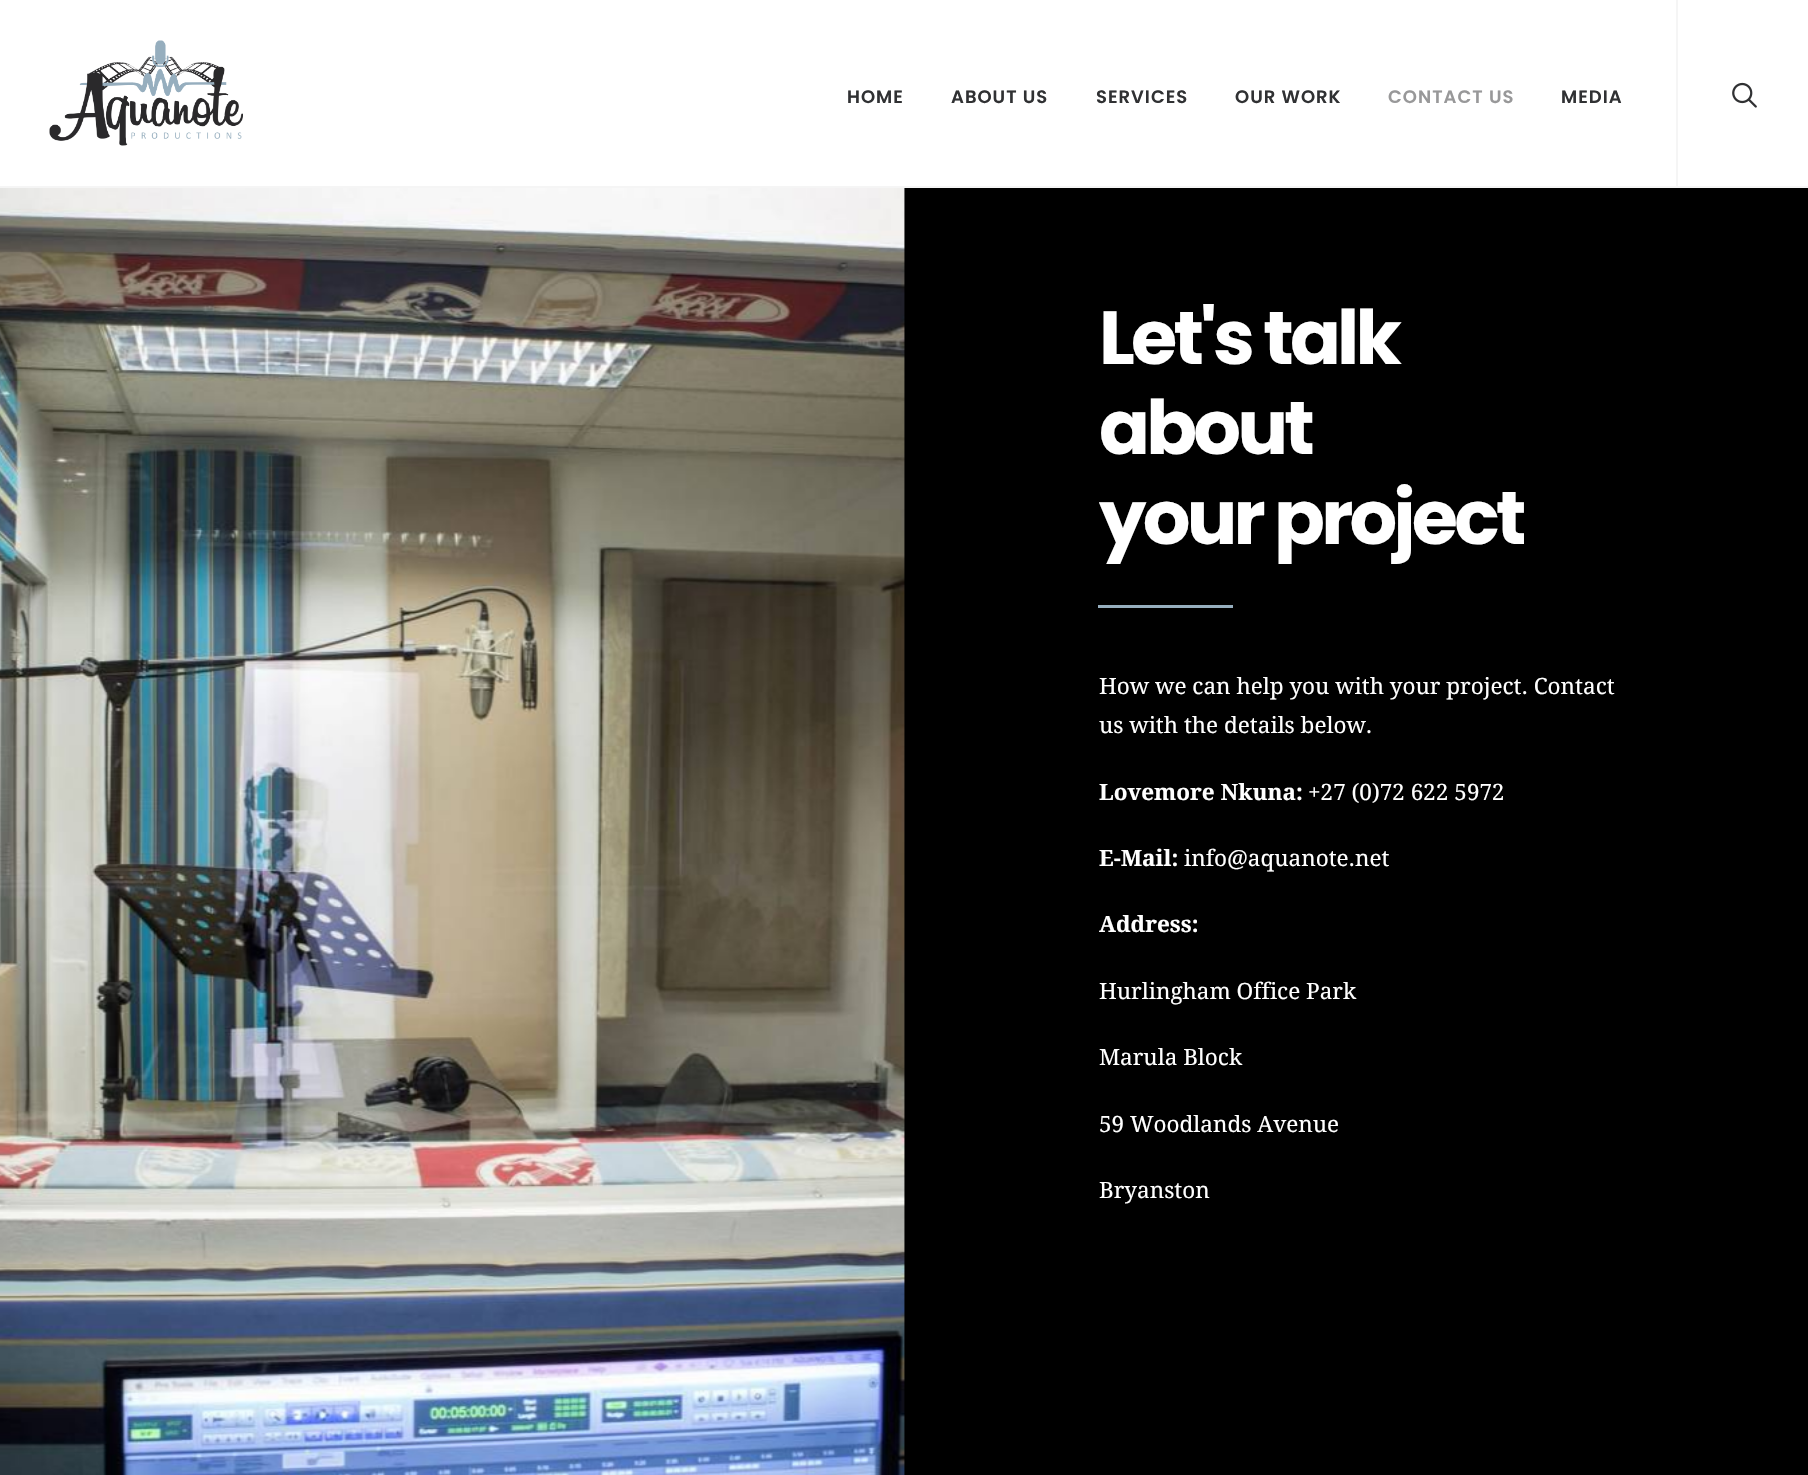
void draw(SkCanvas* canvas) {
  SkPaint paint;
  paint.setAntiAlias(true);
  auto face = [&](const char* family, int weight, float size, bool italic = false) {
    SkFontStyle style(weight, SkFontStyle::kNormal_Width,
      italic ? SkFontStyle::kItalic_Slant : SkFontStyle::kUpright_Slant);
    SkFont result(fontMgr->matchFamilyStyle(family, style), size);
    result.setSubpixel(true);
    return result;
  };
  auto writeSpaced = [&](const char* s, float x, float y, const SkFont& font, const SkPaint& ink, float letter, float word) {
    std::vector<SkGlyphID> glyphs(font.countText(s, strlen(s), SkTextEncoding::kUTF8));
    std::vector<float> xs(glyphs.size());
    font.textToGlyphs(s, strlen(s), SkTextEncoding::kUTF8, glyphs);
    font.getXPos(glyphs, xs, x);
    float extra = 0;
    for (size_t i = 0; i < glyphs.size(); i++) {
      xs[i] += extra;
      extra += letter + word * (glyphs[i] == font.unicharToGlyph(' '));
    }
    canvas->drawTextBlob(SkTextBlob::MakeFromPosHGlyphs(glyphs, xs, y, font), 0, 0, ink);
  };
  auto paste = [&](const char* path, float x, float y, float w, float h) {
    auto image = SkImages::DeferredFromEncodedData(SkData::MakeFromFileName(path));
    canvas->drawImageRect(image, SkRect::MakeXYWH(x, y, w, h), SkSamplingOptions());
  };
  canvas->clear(0xff000000);
  paint.setColor(0xffffffff);
  canvas->drawRect(SkRect::MakeXYWH(0, 0, 1808, 186), paint);
  paint.setColor(0xfff5f5f5);
  canvas->drawRect(SkRect::MakeXYWH(0, 186, 1808, 2), paint);
  paste("img/1.png", 49, 40, 194, 106);
  canvas->drawRect(SkRect::MakeXYWH(1676, 0, 2, 186), paint);
  paste("img/2.png", 1732, 82, 25, 26);
  paste("img/3.png", 0, 188, 905, 1287);
  paint.setColor(0xff96aebe);
  canvas->drawRect(SkRect::MakeXYWH(1098, 605, 135, 3), paint);
  auto f0 = face("Poppins", 600, 18);
  paint.setColor(0xff303133);
  {
    const struct { const char* s; float x, y; } items[] = {
      {"HOME", 847, 103},
      {"ABOUT US", 951, 103},
      {"SERVICES", 1096, 103},
      {"OUR WORK", 1235, 103},
    };
    for (auto [s, x, y] : items) {
      writeSpaced(s, x, y, f0, paint, 1, 0);
    }
  }
  paint.setColor(0xff989899);
  writeSpaced("CONTACT US", 1388, 103, f0, paint, 1, 0);
  paint.setColor(0xff303133);
  writeSpaced("MEDIA", 1561, 103, f0, paint, 1, 0);
  auto f1 = face("Poppins", 700, 75);
  paint.setColor(0xffffffff);
  {
    const struct { const char* s; float x, y; } items[] = {
      {"Let's talk", 1099, 364},
      {"about", 1099, 454},
      {"your project", 1099, 544},
    };
    for (auto [s, x, y] : items) {
      writeSpaced(s, x, y, f1, paint, -3.75f, 0);
    }
  }
  auto f2 = face("Droid Serif", 400, 22.5f);
  canvas->drawString("How we can help you with your project. Contact", 1099, 694, f2, paint);
  canvas->drawString("us with the details below.", 1099, 733, f2, paint);
  auto f3 = face("Droid Serif", 700, 22.5f);
  canvas->drawString("Lovemore Nkuna:", 1099, 800, f3, paint);
  canvas->drawString("+27 (0)72 622 5972", 1308, 800, f2, paint);
  canvas->drawString("E-Mail:", 1099, 866, f3, paint);
  canvas->drawString("info@aquanote.net", 1184, 866, f2, paint);
  canvas->drawString("Address:", 1099, 932, f3, paint);
  {
    const struct { const char* s; float x, y; } items[] = {
      {"Hurlingham Office Park", 1099, 999},
      {"Marula Block", 1099, 1065},
      {"59 Woodlands Avenue", 1099, 1132},
      {"Bryanston", 1099, 1198},
    };
    for (auto [s, x, y] : items) {
      canvas->drawString(s, x, y, f2, paint);
    }
  }
}
